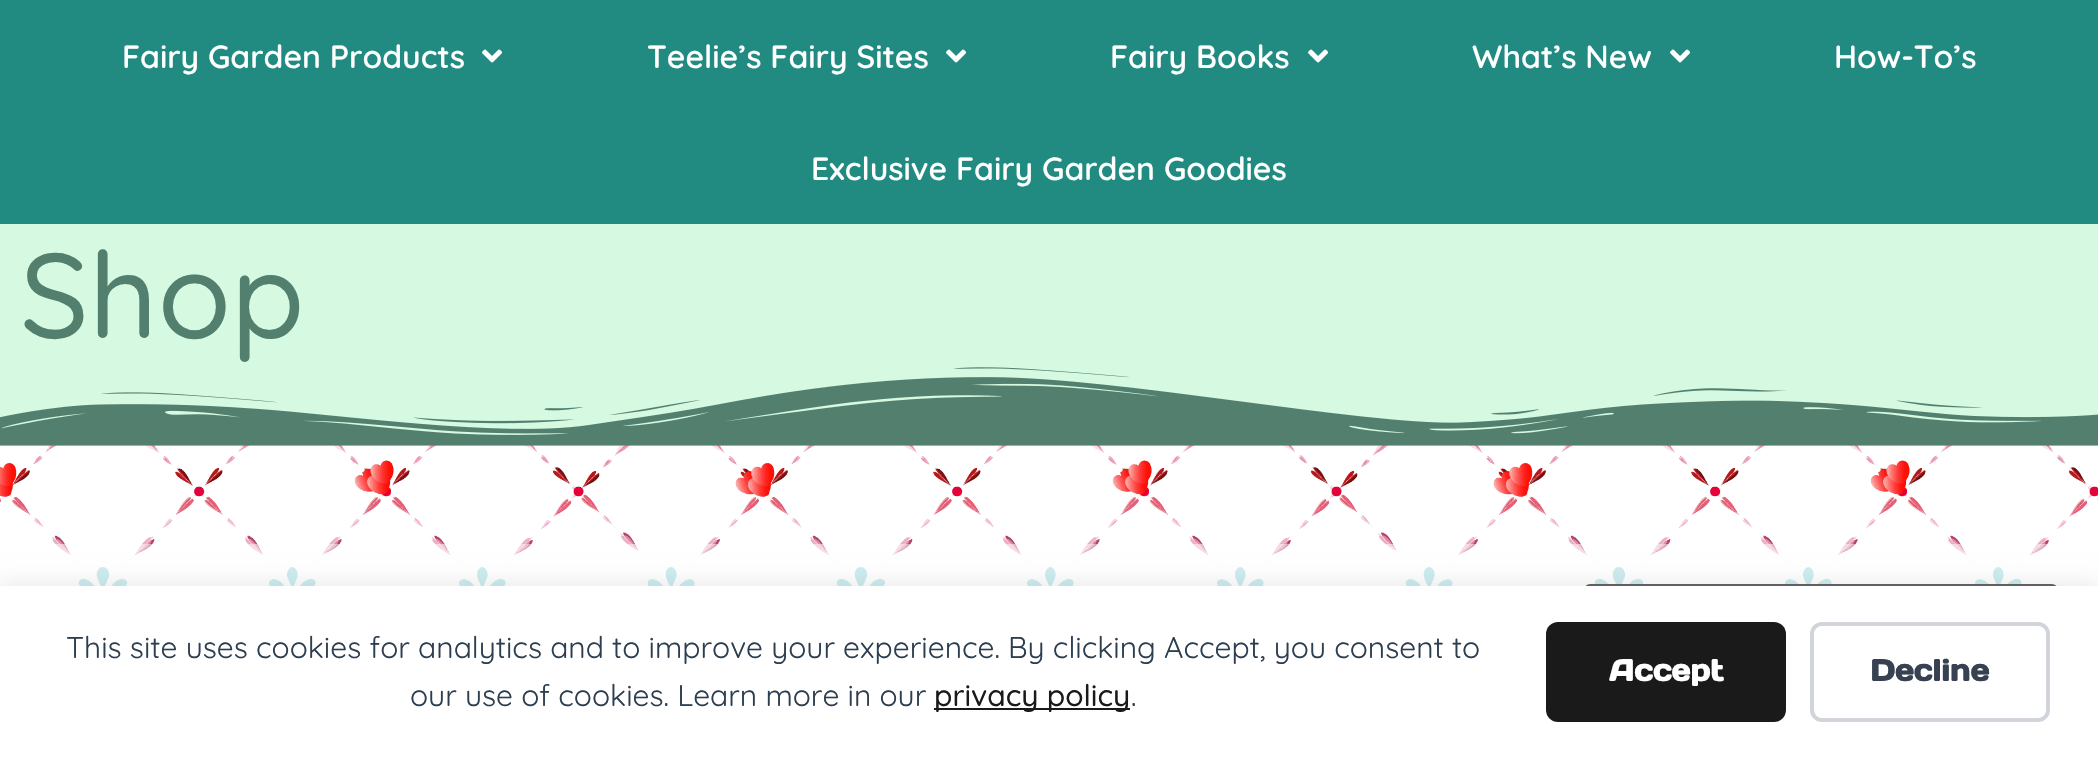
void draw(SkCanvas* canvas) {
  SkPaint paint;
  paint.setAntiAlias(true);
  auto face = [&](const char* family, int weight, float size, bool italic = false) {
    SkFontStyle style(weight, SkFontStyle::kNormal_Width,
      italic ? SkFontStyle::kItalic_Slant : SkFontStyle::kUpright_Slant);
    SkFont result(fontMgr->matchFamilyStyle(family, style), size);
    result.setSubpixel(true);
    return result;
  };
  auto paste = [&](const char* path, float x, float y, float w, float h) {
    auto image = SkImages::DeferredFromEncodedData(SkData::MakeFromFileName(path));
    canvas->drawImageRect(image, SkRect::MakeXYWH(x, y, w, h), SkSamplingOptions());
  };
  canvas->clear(0xffffffff);
  paste("img/1.png", 0, 445, 2098, 141);
  paint.setColor(0xff218b82);
  canvas->drawRect(SkRect::MakeXYWH(0, 0, 2098, 224), paint);
  paste("img/2.png", 482, 49, 20, 14);
  paste("img/2.png", 946, 49, 20, 14);
  paste("img/2.png", 1308, 49, 20, 14);
  paste("img/2.png", 1670, 49, 20, 14);
  paint.setColor(0xffd5f9e1);
  canvas->drawRect(SkRect::MakeXYWH(0, 224, 2098, 211), paint);
  paste("img/3.png", 0, 367, 2098, 79);
  paint.setColor(0x80ffffff);
  canvas->drawRect(SkRect::MakeXYWH(55, 544, 1993, 42), paint);
  paint.setStroke(true);
  paint.setStrokeWidth(2);
  paint.setColor(0xff666666);
  canvas->drawRoundRect(SkRect::MakeXYWH(1585, 585, 472, 78), 5, 5, paint);
  paint.setStroke(false);
  paint.setColor(0x14000000);
  paint.setMaskFilter(SkMaskFilter::MakeBlur(kNormal_SkBlurStyle, 10));
  canvas->drawRect(SkRect::MakeXYWH(0, 582, 2098, 172), paint);
  paint.setMaskFilter(nullptr);
  paint.setColor(0xffffffff);
  canvas->drawRect(SkRect::MakeXYWH(0, 586, 2098, 171), paint);
  paint.setColor(0xff1a1a1a);
  canvas->drawRect(SkRect::MakeXYWH(934, 708, 196, 2), paint);
  canvas->drawRoundRect(SkRect::MakeXYWH(1546, 622, 240, 100), 12, 12, paint);
  paint.setStroke(true);
  paint.setStrokeWidth(4);
  paint.setColor(0xffd1d5db);
  canvas->drawRoundRect(SkRect::MakeXYWH(1812, 624, 236, 96), 10, 10, paint);
  auto f0 = face("Quicksand", 600, 32);
  paint.setStroke(false);
  paint.setColor(0xffffffff);
  {
    const struct { const char* s; float x, y; } items[] = {
      {"Fairy Garden Products", 122, 68},
      {"Teelie’s Fairy Sites", 647, 68},
      {"Fairy Books", 1110, 68},
      {"What’s New", 1472, 68},
      {"How-To’s", 1834, 68},
      {"Exclusive Fairy Garden Goodies", 811, 180},
    };
    for (auto [s, x, y] : items) {
      canvas->drawString(s, x, y, f0, paint);
    }
  }
  auto f1 = face("Quicksand", 500, 120);
  paint.setColor(0xff537f6f);
  canvas->drawString("Shop", 20, 338, f1, paint);
  auto f2 = face("Quicksand", 400, 30);
  paint.setColor(0xff2c3e50);
  canvas->drawString("This site uses cookies for analytics and to improve your experience. By clicking Accept, you consent to", 66, 658, f2, paint);
  canvas->drawString("our use of cookies. Learn more in our", 410, 706, f2, paint);
  auto f3 = face("Quicksand", 500, 30);
  paint.setColor(0xff1a1a1a);
  canvas->drawString("privacy policy", 934, 706, f3, paint);
  paint.setColor(0xff2c3e50);
  canvas->drawString(".", 1131, 706, f2, paint);
  auto f4 = face("Days One", 700, 30);
  paint.setColor(0xffffffff);
  canvas->drawString("Accept", 1609, 681, f4, paint);
  paint.setColor(0xff374151);
  canvas->drawString("Decline", 1870, 681, f4, paint);
}
